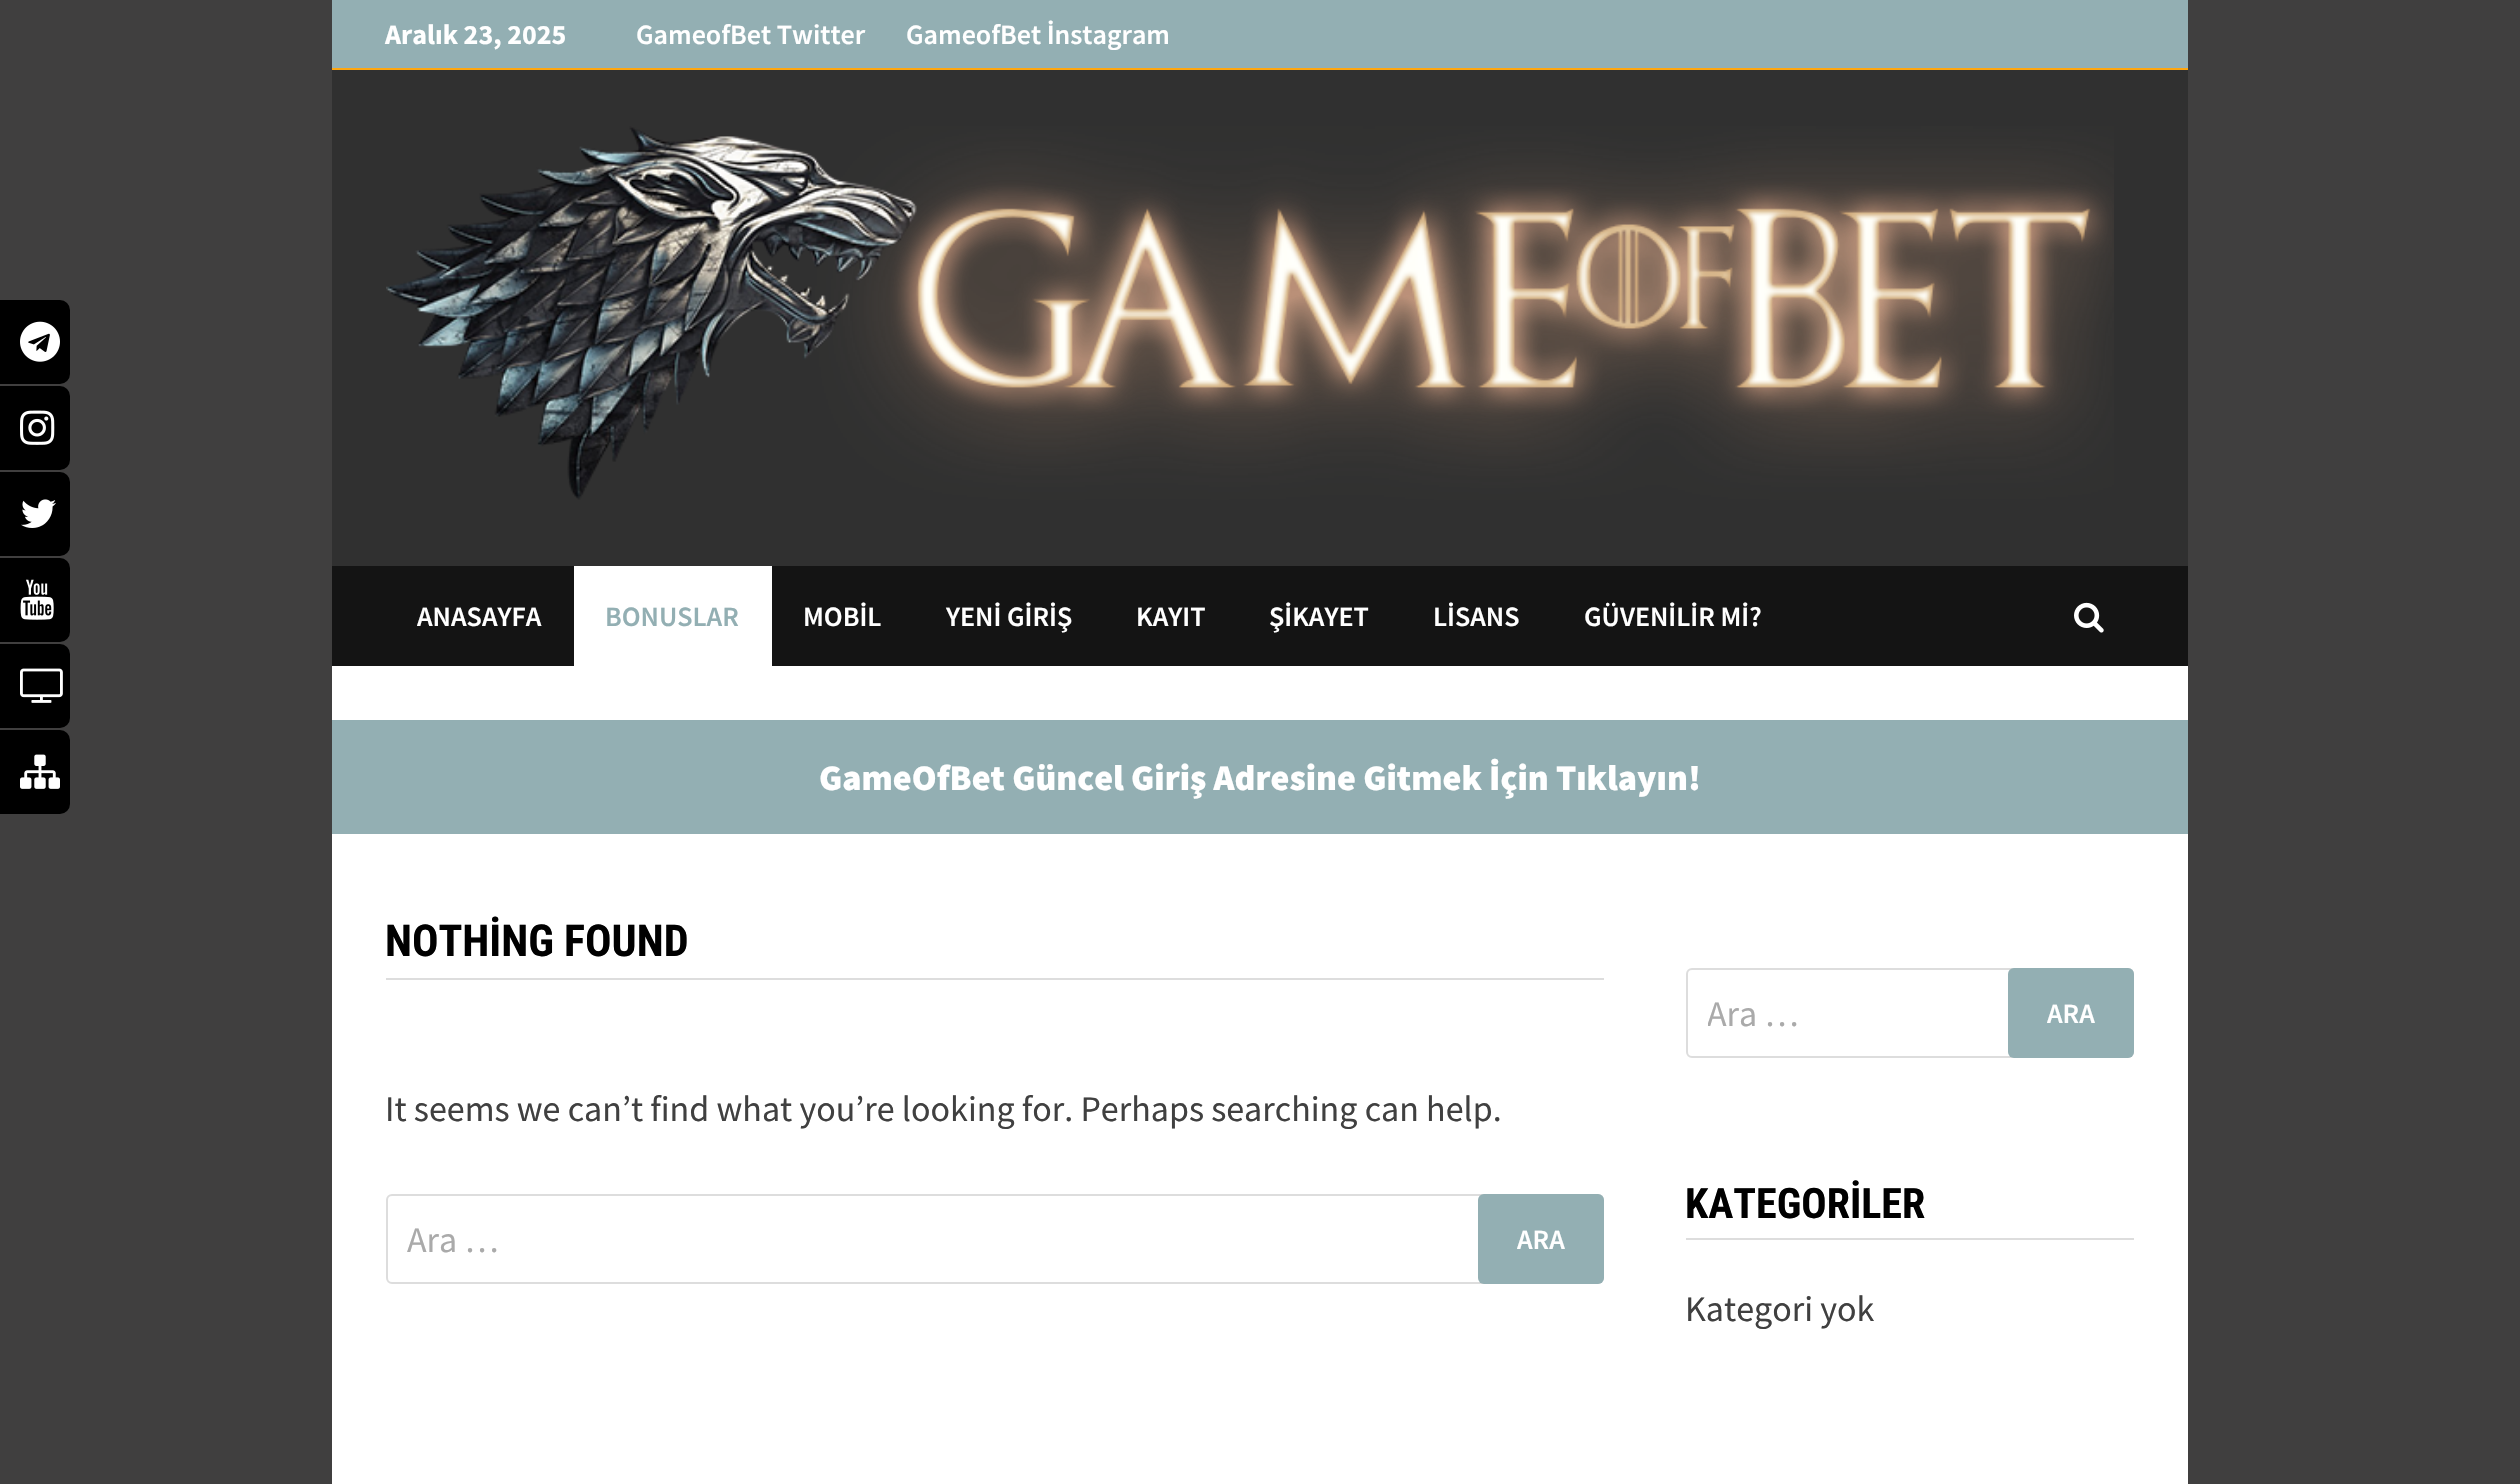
void draw(SkCanvas* canvas) {
  SkPaint paint;
  paint.setAntiAlias(true);
  auto face = [&](const char* family, int weight, float size, bool italic = false) {
    SkFontStyle style(weight, SkFontStyle::kNormal_Width,
      italic ? SkFontStyle::kItalic_Slant : SkFontStyle::kUpright_Slant);
    SkFont result(fontMgr->matchFamilyStyle(family, style), size);
    result.setSubpixel(true);
    return result;
  };
  auto paste = [&](const char* path, float x, float y, float w, float h) {
    auto image = SkImages::DeferredFromEncodedData(SkData::MakeFromFileName(path));
    canvas->drawImageRect(image, SkRect::MakeXYWH(x, y, w, h), SkSamplingOptions());
  };
  canvas->clear(0xff403f3f);
  paint.setColor(0xff000000);
  canvas->drawRoundRect(SkRect::MakeXYWH(-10, 300, 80, 84), 10, 10, paint);
  paste("img/1.png", 20, 321, 40, 41);
  canvas->drawRoundRect(SkRect::MakeXYWH(-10, 386, 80, 84), 10, 10, paint);
  paste("img/2.png", 20, 410, 35, 35);
  canvas->drawRoundRect(SkRect::MakeXYWH(-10, 472, 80, 84), 10, 10, paint);
  paste("img/3.png", 21, 499, 35, 29);
  canvas->drawRoundRect(SkRect::MakeXYWH(-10, 558, 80, 84), 10, 10, paint);
  paste("img/4.png", 20, 579, 34, 41);
  canvas->drawRoundRect(SkRect::MakeXYWH(-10, 644, 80, 84), 10, 10, paint);
  paste("img/5.png", 20, 668, 43, 35);
  canvas->drawRoundRect(SkRect::MakeXYWH(-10, 730, 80, 84), 10, 10, paint);
  paste("img/6.png", 20, 754, 40, 35);
  {
    const struct { float x, y, w, h; SkColor color; } items[] = {
      {332, 666, 1856, 818, 0xffffffff},
      {332, 0, 1856, 68, 0xff93afb3},
      {332, 68, 1856, 2, 0xffffa60e},
      {332, 70, 1856, 496, 0xff303030},
    };
    for (auto [x, y, w, h, color] : items) {
      paint.setColor(color);
      canvas->drawRect(SkRect::MakeXYWH(x, y, w, h), paint);
    }
  }
  paste("img/7.png", 386, 126, 1728, 374);
  paint.setColor(0xff141414);
  canvas->drawRect(SkRect::MakeXYWH(332, 566, 1856, 100), paint);
  paint.setColor(0xffffffff);
  canvas->drawRect(SkRect::MakeXYWH(574, 566, 198, 100), paint);
  paste("img/8.png", 2074, 602, 30, 31);
  paint.setColor(0xff93afb3);
  canvas->drawRect(SkRect::MakeXYWH(332, 720, 1856, 114), paint);
  paint.setColor(0xffdddddd);
  canvas->drawRect(SkRect::MakeXYWH(386, 978, 1218, 2), paint);
  paint.setStroke(true);
  paint.setStrokeWidth(2);
  canvas->drawRoundRect(SkRect::MakeXYWH(387, 1195, 1216, 88), 5, 5, paint);
  paint.setStroke(false);
  paint.setColor(0xff93afb3);
  canvas->drawRoundRect(SkRect::MakeXYWH(1478, 1194, 126, 90), 6, 6, paint);
  paint.setStroke(true);
  paint.setColor(0xffdddddd);
  canvas->drawRoundRect(SkRect::MakeXYWH(1687, 969, 446, 88), 5, 5, paint);
  paint.setStroke(false);
  paint.setColor(0xff93afb3);
  canvas->drawRoundRect(SkRect::MakeXYWH(2008, 968, 126, 90), 6, 6, paint);
  paint.setColor(0xffdddddd);
  canvas->drawRect(SkRect::MakeXYWH(1686, 1238, 448, 2), paint);
  auto f0 = face("Source Sans Pro", 700, 28);
  paint.setColor(0xffffffff);
  canvas->drawString("Aralık 23, 2025", 385, 44, f0, paint);
  auto f1 = face("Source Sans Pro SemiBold", 600, 28);
  {
    const struct { const char* s; float x, y; } items[] = {
      {"GameofBet Twitter", 636, 44},
      {"GameofBet İnstagram", 906, 44},
      {"ANASAYFA", 417, 626},
    };
    for (auto [s, x, y] : items) {
      canvas->drawString(s, x, y, f1, paint);
    }
  }
  paint.setColor(0xff93afb3);
  canvas->drawString("BONUSLAR", 605, 626, f1, paint);
  paint.setColor(0xffffffff);
  {
    const struct { const char* s; float x, y; } items[] = {
      {"MOBİL", 803, 626},
      {"YENİ GİRİŞ", 946, 626},
      {"KAYIT", 1136, 626},
      {"ŞİKAYET", 1269, 626},
      {"LİSANS", 1433, 626},
      {"GÜVENİLİR Mİ?", 1584, 626},
    };
    for (auto [s, x, y] : items) {
      canvas->drawString(s, x, y, f1, paint);
    }
  }
  auto f2 = face("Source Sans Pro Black", 900, 36);
  canvas->drawString("GameOfBet Güncel Giriş Adresine Gitmek İçin Tıklayın!", 819, 790, f2, paint);
  auto f3 = face("Roboto Condensed", 700, 44);
  paint.setColor(0xff000000);
  canvas->drawString("NOTHİNG FOUND", 385, 956, f3, paint);
  auto f4 = face("Source Sans Pro", 400, 36);
  paint.setColor(0xff404040);
  canvas->drawString("It seems we can’t find what you’re looking for. Perhaps searching can help.", 385, 1121, f4, paint);
  paint.setColor(0xffaaaaaa);
  canvas->drawString("Ara …", 407, 1252, f4, paint);
  paint.setColor(0xffffffff);
  canvas->drawString("ARA", 1517, 1249, f1, paint);
  canvas->save();
  canvas->clipRect(SkRect::MakeXYWH(1708, 990, 212, 46));
  paint.setColor(0xffaaaaaa);
  canvas->drawString("Ara …", 1707, 1026, f4, paint);
  canvas->restore();
  paint.setColor(0xffffffff);
  canvas->drawString("ARA", 2047, 1023, f1, paint);
  auto f5 = face("Roboto Condensed", 700, 42);
  paint.setColor(0xff000000);
  canvas->drawString("KATEGORİLER", 1685, 1218, f5, paint);
  paint.setColor(0xff404040);
  canvas->drawString("Kategori yok", 1685, 1321, f4, paint);
}
